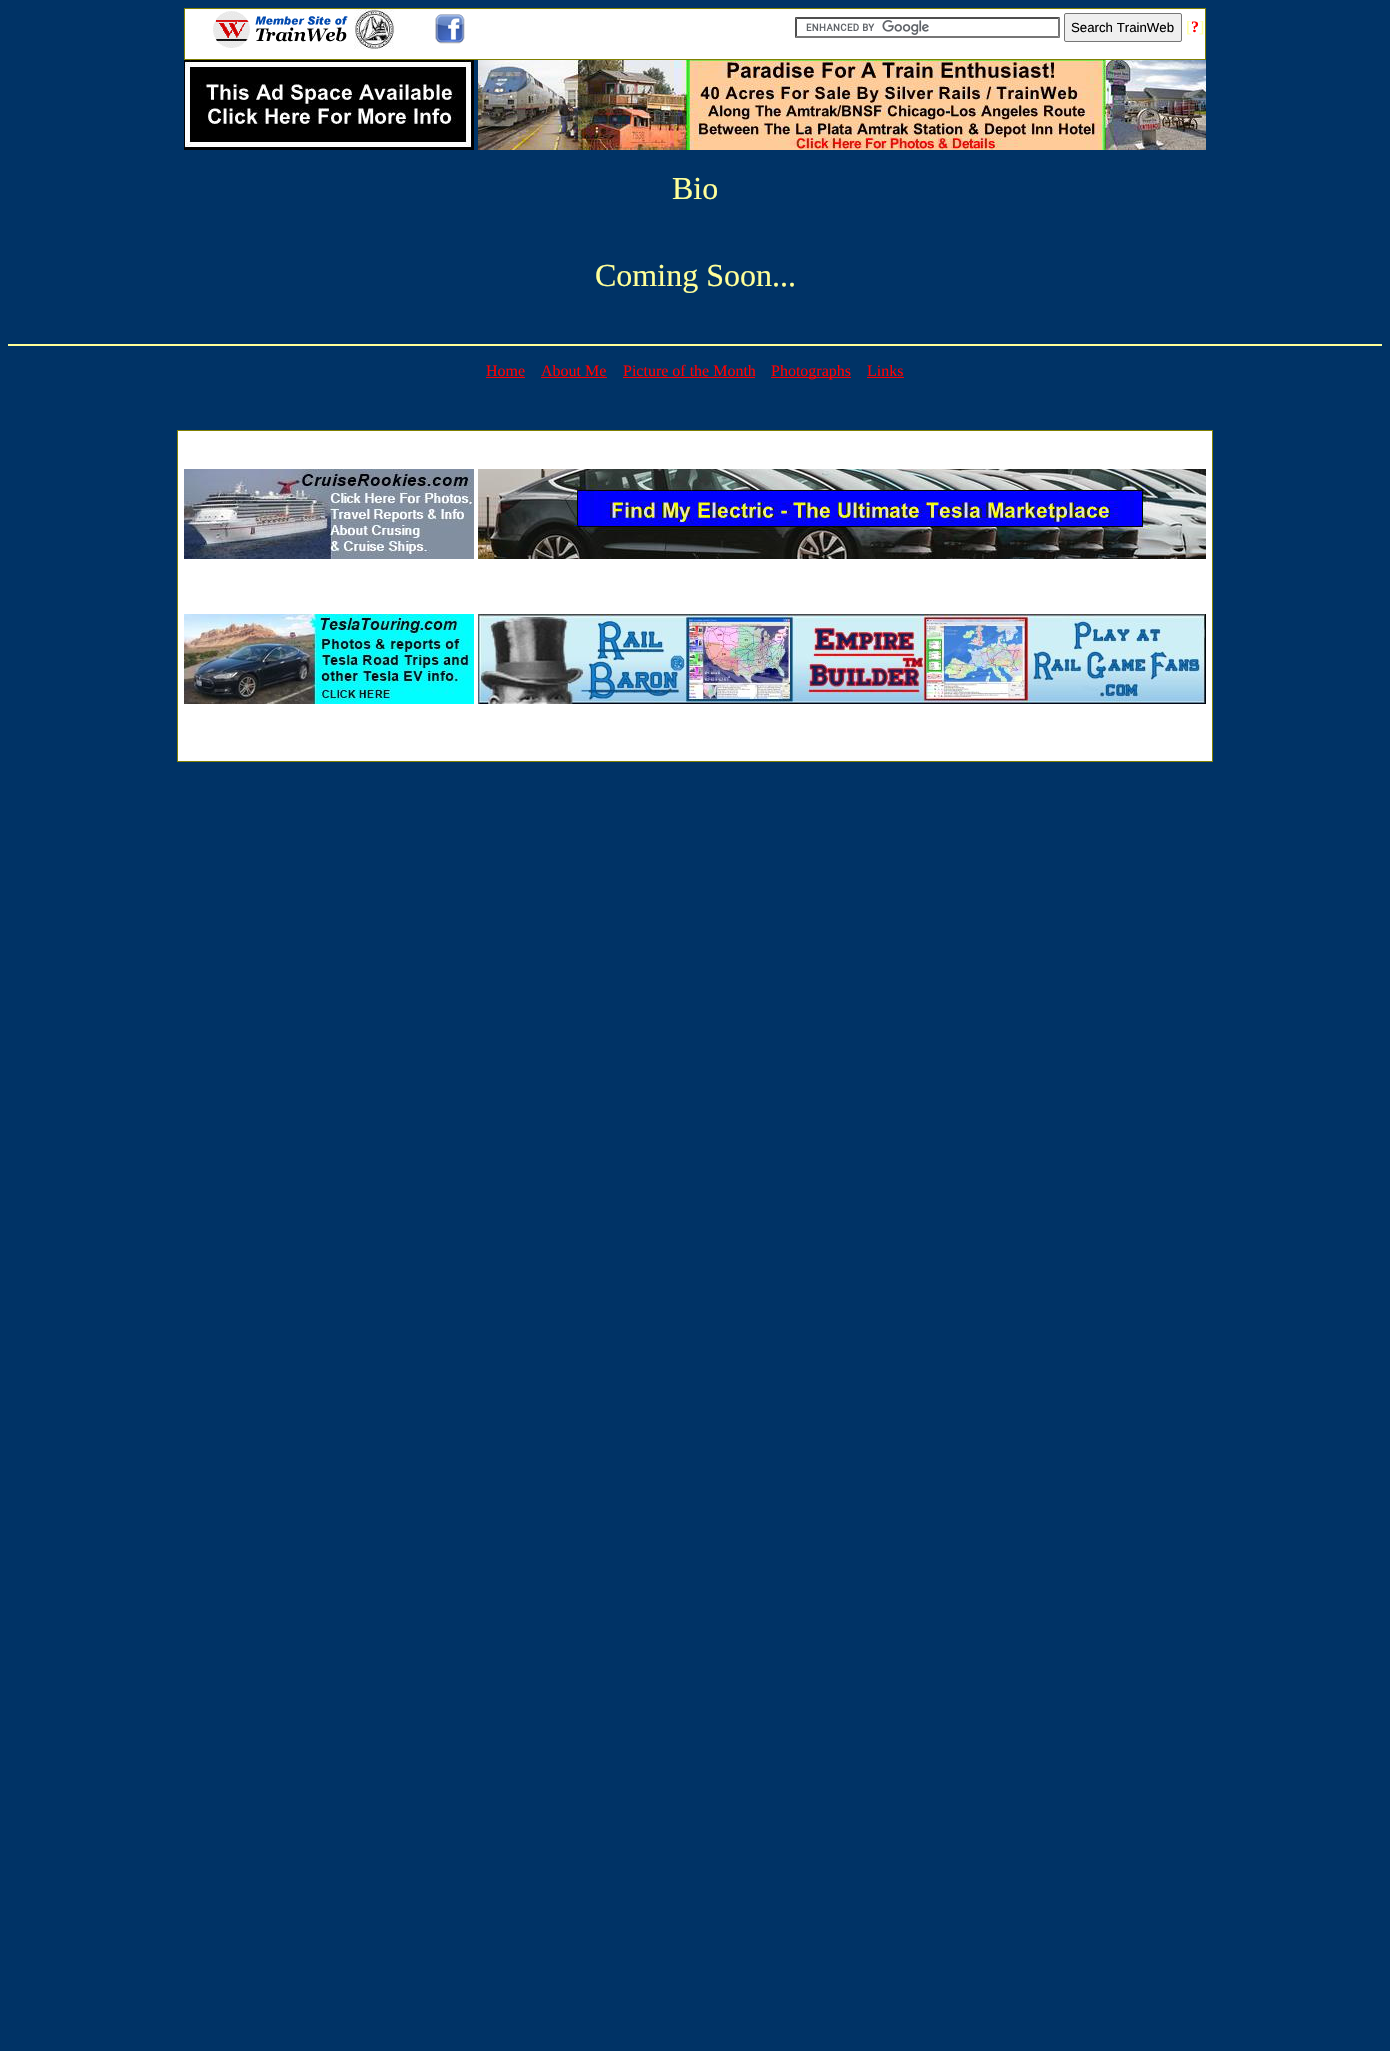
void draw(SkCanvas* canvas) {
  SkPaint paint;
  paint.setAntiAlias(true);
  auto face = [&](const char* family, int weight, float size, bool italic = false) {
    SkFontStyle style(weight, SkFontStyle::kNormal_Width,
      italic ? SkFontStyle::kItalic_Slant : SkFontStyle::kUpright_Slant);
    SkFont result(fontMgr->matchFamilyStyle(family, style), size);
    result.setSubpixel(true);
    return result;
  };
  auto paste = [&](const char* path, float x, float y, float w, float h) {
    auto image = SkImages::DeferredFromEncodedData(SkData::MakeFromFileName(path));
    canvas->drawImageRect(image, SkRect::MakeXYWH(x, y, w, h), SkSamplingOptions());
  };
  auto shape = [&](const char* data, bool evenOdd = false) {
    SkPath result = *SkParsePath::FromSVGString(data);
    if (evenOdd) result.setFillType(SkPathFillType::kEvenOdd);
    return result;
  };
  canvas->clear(0xff003366);
  paint.setColor(0xffffffff);
  canvas->drawRect(SkRect::MakeXYWH(184.5f, 8.5f, 1021, 51), paint);
  paint.setStroke(true);
  paint.setStrokeWidth(1);
  paint.setColor(0xff808000);
  canvas->drawRect(SkRect::MakeXYWH(184.5f, 8.5f, 1021, 51), paint);
  paste("img/1.png", 213, 11, 135, 37);
  paste("img/2.png", 354, 9, 41, 41);
  paste("img/3.png", 435, 14, 30, 30);
  paste("img/4.png", 806, 20, 123, 15);
  paint.setStroke(false);
  paint.setColor(0xff4f4f4f);
  canvas->drawPath(shape("M795 17H1060L1058 19H797Z"), paint);
  paint.setColor(0xff767676);
  canvas->drawPath(shape("M1060 17V38L1058 36V19Z"), paint);
  canvas->drawPath(shape("M1060 38H795L797 36H1058Z"), paint);
  paint.setColor(0xff4f4f4f);
  canvas->drawPath(shape("M795 38V17L797 19V36Z"), paint);
  paint.setColor(0xffefefef);
  canvas->drawRoundRect(SkRect::MakeXYWH(1064.5f, 13.5f, 117, 28), 1.5f, 1.5f, paint);
  paint.setStroke(true);
  paint.setColor(0xff767676);
  canvas->drawRoundRect(SkRect::MakeXYWH(1064.5f, 13.5f, 117, 28), 1.5f, 1.5f, paint);
  paste("img/5.png", 184, 60, 290, 90);
  paste("img/6.png", 478, 60, 728, 90);
  paint.setStroke(false);
  {
    const struct { float x, y, w, h; SkColor color; } items[] = {
      {8, 344, 1374, 2, 0xffffff99},
      {486, 377, 39, 1, 0xffff0000},
      {541, 377, 66, 1, 0xffff0000},
      {623, 377, 132, 1, 0xffff0000},
      {771, 377, 80, 1, 0xffff0000},
      {867, 377, 37, 1, 0xffff0000},
    };
    for (auto [x, y, w, h, color] : items) {
      paint.setColor(color);
      canvas->drawRect(SkRect::MakeXYWH(x, y, w, h), paint);
    }
  }
  paint.setColor(0xffffffff);
  canvas->drawRect(SkRect::MakeXYWH(177.5f, 430.5f, 1035, 331), paint);
  paint.setStroke(true);
  paint.setColor(0xff808000);
  canvas->drawRect(SkRect::MakeXYWH(177.5f, 430.5f, 1035, 331), paint);
  paste("img/7.png", 184, 469, 290, 90);
  paste("img/8.png", 478, 469, 728, 90);
  paste("img/9.png", 184, 614, 290, 90);
  paste("img/10.png", 478, 614, 728, 90);
  auto f0 = face("Liberation Sans", 400, 13.25f);
  paint.setStroke(false);
  paint.setColor(0xff000000);
  canvas->drawString("Search TrainWeb", 1071, 32, f0, paint);
  auto f1 = face("Liberation Serif", 400, 16);
  paint.setColor(0xffffff99);
  canvas->drawString("[", 1186, 32, f1, paint);
  auto f2 = face("Liberation Serif", 700, 16);
  paint.setColor(0xffff0000);
  canvas->drawString("?", 1191, 32, f2, paint);
  paint.setColor(0xffffff99);
  canvas->drawString("]", 1199, 32, f1, paint);
  auto f3 = face("Liberation Serif", 400, 32);
  canvas->drawString("Bio", 672, 199, f3, paint);
  canvas->drawString("Coming Soon...", 595, 286, f3, paint);
  paint.setColor(0xffff0000);
  {
    const struct { const char* s; float x, y; } items[] = {
      {"Home", 486, 376},
      {"About Me", 541, 376},
      {"Picture of the Month", 623, 376},
      {"Photographs", 771, 376},
      {"Links", 867, 376},
    };
    for (auto [s, x, y] : items) {
      canvas->drawString(s, x, y, f1, paint);
    }
  }
}
